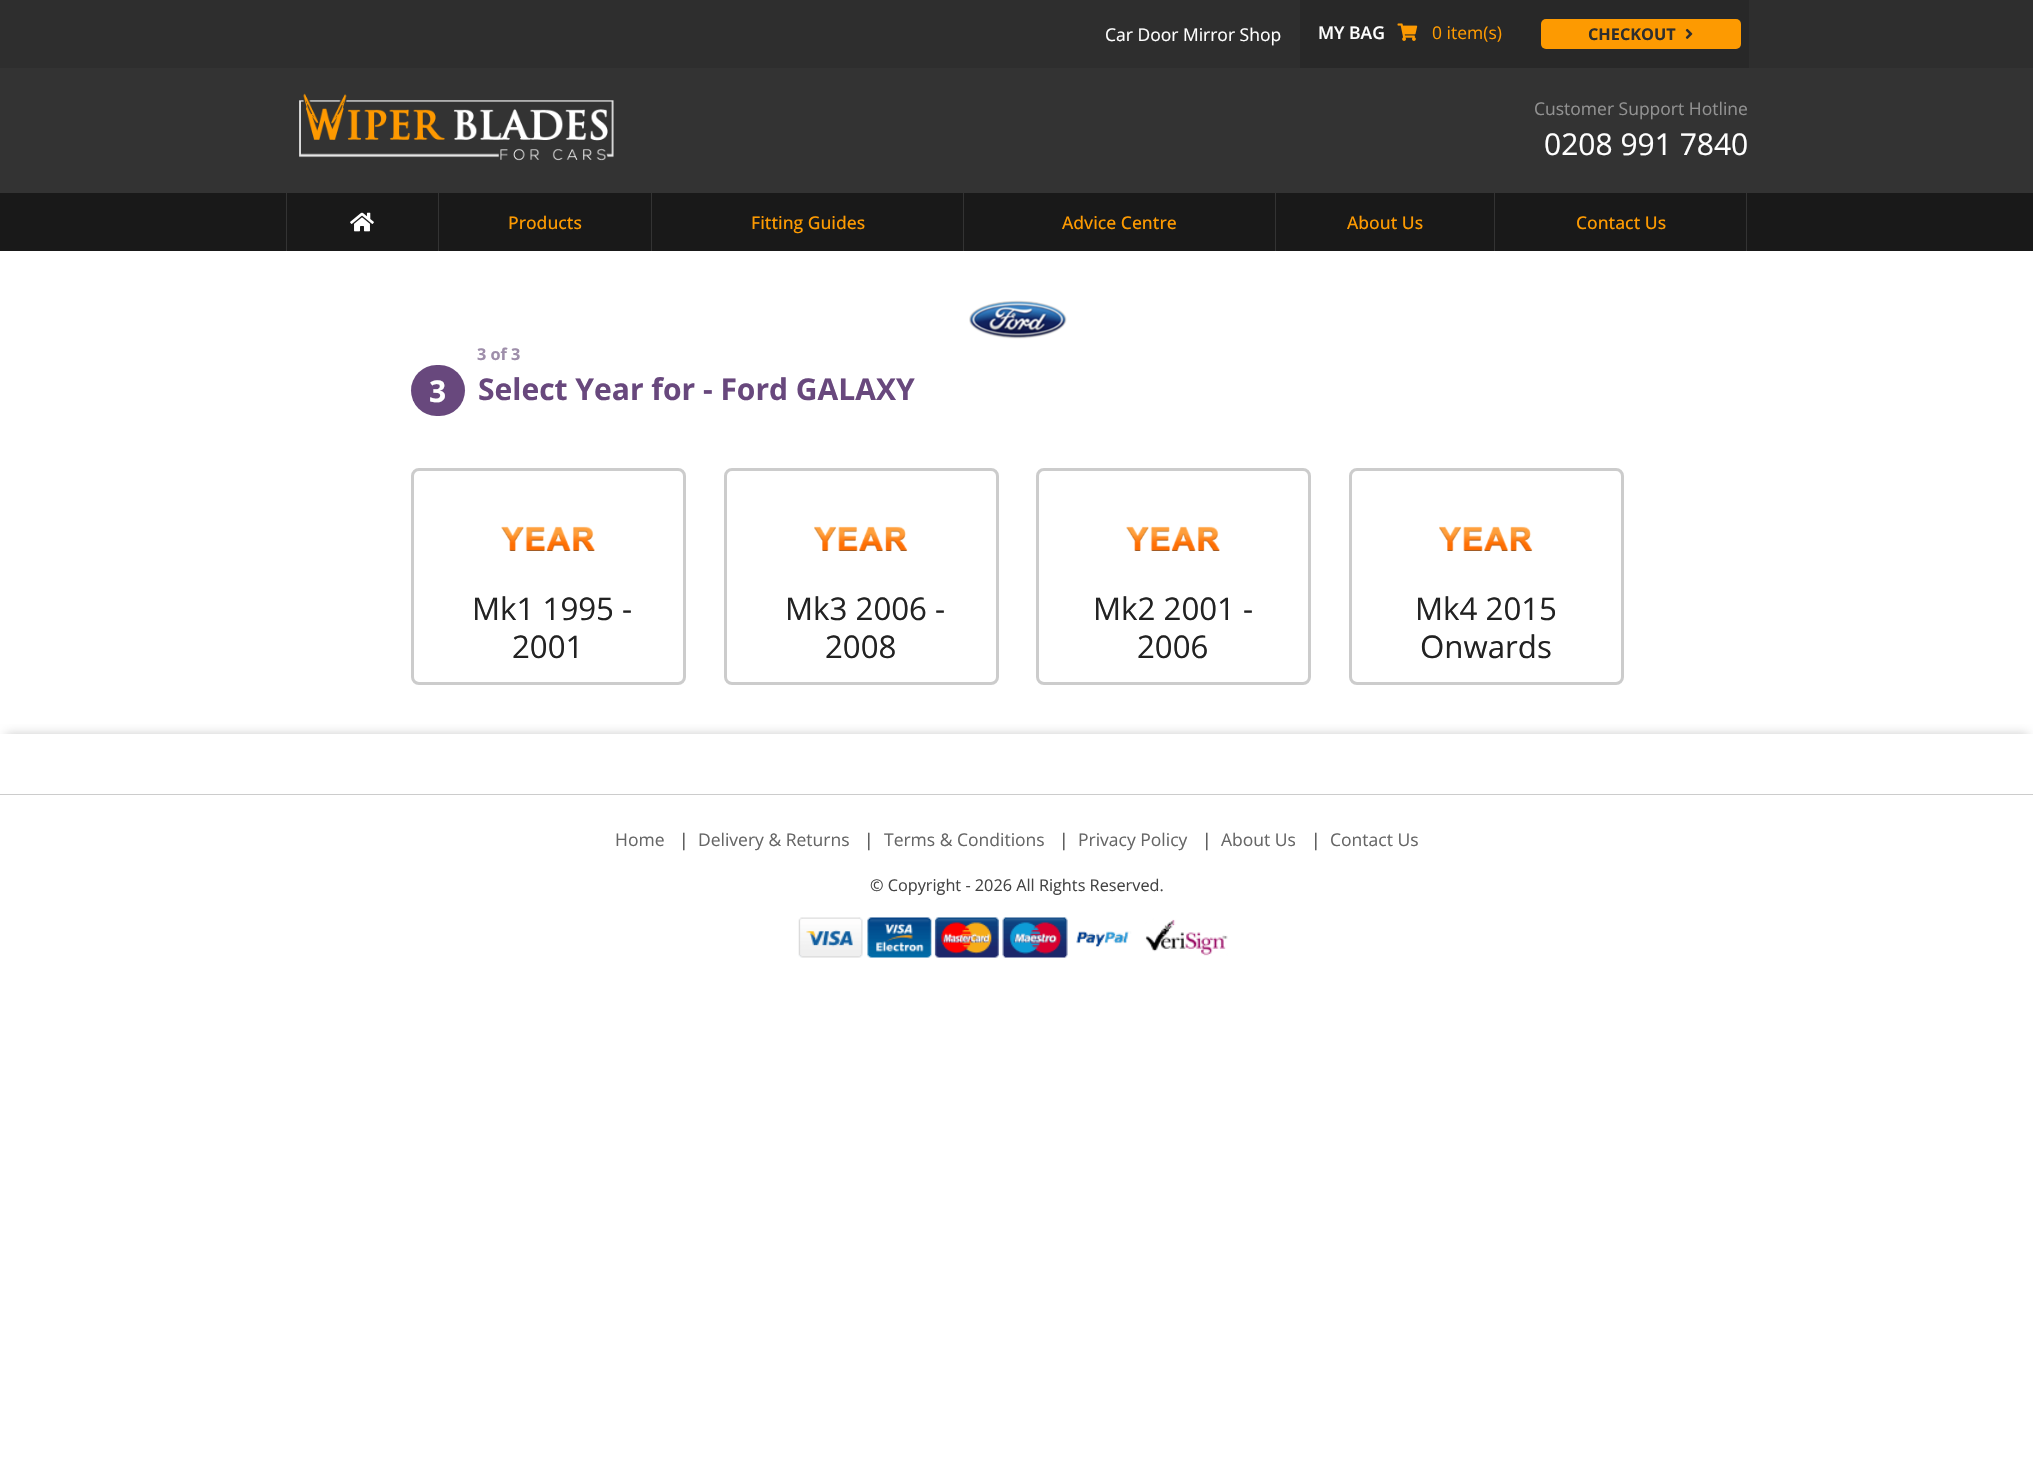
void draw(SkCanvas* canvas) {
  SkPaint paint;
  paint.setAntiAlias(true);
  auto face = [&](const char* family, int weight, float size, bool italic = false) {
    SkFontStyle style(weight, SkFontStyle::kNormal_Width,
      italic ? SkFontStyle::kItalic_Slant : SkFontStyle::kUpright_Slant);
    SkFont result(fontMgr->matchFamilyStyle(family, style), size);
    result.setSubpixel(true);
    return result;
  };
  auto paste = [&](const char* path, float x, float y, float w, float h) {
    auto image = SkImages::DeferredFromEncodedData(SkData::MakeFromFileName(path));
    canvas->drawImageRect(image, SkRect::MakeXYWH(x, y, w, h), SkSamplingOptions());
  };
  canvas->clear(0xffffffff);
  paint.setColor(0xff2e2e2e);
  canvas->drawRect(SkRect::MakeXYWH(0, 0, 2033, 68), paint);
  paint.setColor(0xff282828);
  canvas->drawRect(SkRect::MakeXYWH(1300, 0, 449, 68), paint);
  paste("img/1.png", 1397, 23, 21, 18);
  paint.setColor(0xfffd9a01);
  canvas->drawRoundRect(SkRect::MakeXYWH(1541, 19, 200, 30), 5, 5, paint);
  paste("img/2.png", 1685, 28, 8, 11);
  paint.setColor(0xff333333);
  canvas->drawRect(SkRect::MakeXYWH(0, 68, 2033, 125), paint);
  paste("img/3.png", 299, 93, 315, 68);
  {
    const struct { float x, y, w, h; SkColor color; } items[] = {
      {0, 193, 2033, 58, 0xff191919},
      {286, 193, 1, 58, 0xff333333},
      {438, 193, 1, 58, 0xff333333},
    };
    for (auto [x, y, w, h, color] : items) {
      paint.setColor(color);
      canvas->drawRect(SkRect::MakeXYWH(x, y, w, h), paint);
    }
  }
  paste("img/4.png", 350, 212, 24, 20);
  {
    const struct { float x, y, w, h; SkColor color; } items[] = {
      {651, 193, 1, 58, 0xff333333},
      {963, 193, 1, 58, 0xff333333},
      {1275, 193, 1, 58, 0xff333333},
      {1494, 193, 1, 58, 0xff333333},
      {1746, 193, 1, 58, 0xff333333},
    };
    for (auto [x, y, w, h, color] : items) {
      paint.setColor(color);
      canvas->drawRect(SkRect::MakeXYWH(x, y, w, h), paint);
    }
  }
  paste("img/5.png", 969, 300, 98, 39);
  paint.setColor(0xff68487d);
  canvas->drawRoundRect(SkRect::MakeXYWH(411, 365, 54, 51), 25.5f, 25.5f, paint);
  paint.setStroke(true);
  paint.setStrokeWidth(3);
  paint.setColor(0xffcccccc);
  canvas->drawRoundRect(SkRect::MakeXYWH(412.5f, 469.5f, 272, 214), 6.5f, 6.5f, paint);
  paste("img/6.png", 501, 526, 94, 25);
  canvas->drawRoundRect(SkRect::MakeXYWH(725.5f, 469.5f, 272, 214), 6.5f, 6.5f, paint);
  paste("img/7.png", 814, 526, 94, 25);
  canvas->drawRoundRect(SkRect::MakeXYWH(1037.5f, 469.5f, 272, 214), 6.5f, 6.5f, paint);
  paste("img/6.png", 1126, 526, 94, 25);
  canvas->drawRoundRect(SkRect::MakeXYWH(1350.5f, 469.5f, 272, 214), 6.5f, 6.5f, paint);
  paste("img/7.png", 1439, 526, 94, 25);
  canvas->save();
  canvas->clipRect(SkRect::MakeXYWH(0, 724, 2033, 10));
  paint.setStroke(false);
  paint.setMaskFilter(SkMaskFilter::MakeBlur(kNormal_SkBlurStyle, 5));
  canvas->drawRect(SkRect::MakeXYWH(6, 734, 2022, 47), paint);
  paint.setMaskFilter(nullptr);
  canvas->restore();
  canvas->drawRect(SkRect::MakeXYWH(0, 794, 2033, 1), paint);
  paste("img/8.png", 798, 917, 430, 41);
  auto f0 = face("Open Sans", 400, 17.5f);
  paint.setColor(0xffffffff);
  canvas->drawString("Car Door Mirror Shop", 1105, 41, f0, paint);
  auto f1 = face("Open Sans", 600, 17.5f);
  canvas->drawString("MY BAG", 1318, 39, f1, paint);
  paint.setColor(0xfffd9a01);
  canvas->drawString("0 item(s)", 1432, 39, f0, paint);
  auto f2 = face("Open Sans", 700, 16.25f);
  paint.setColor(0xff2e2e2e);
  canvas->drawString("CHECKOUT", 1588, 40, f2, paint);
  paint.setColor(0xff929292);
  canvas->drawString("Customer Support Hotline", 1534, 115, f0, paint);
  auto f3 = face("Open Sans", 400, 30);
  paint.setColor(0xffffffff);
  canvas->drawString("0208 991 7840", 1544, 155, f3, paint);
  auto f4 = face("Open Sans", 500, 17.5f);
  paint.setColor(0xfffd9a01);
  {
    const struct { const char* s; float x, y; } items[] = {
      {"Products", 508, 229},
      {"Fitting Guides", 751, 229},
      {"Advice Centre", 1062, 229},
      {"About Us", 1347, 229},
      {"Contact Us", 1576, 229},
    };
    for (auto [s, x, y] : items) {
      canvas->drawString(s, x, y, f4, paint);
    }
  }
  paint.setColor(0xff9e8eaa);
  canvas->drawString("3 of 3", 477, 360, f2, paint);
  auto f5 = face("Open Sans", 700, 30);
  paint.setColor(0xffffffff);
  canvas->drawString("3", 429, 402, f5, paint);
  paint.setColor(0xff68487d);
  canvas->drawString("Select Year for - Ford GALAXY", 478, 400, f5, paint);
  auto f6 = face("Open Sans", 400, 31.25f);
  paint.setColor(0xff222222);
  {
    const struct { const char* s; float x, y; } items[] = {
      {"Mk1 1995 -", 472, 620},
      {"2001", 512, 658},
      {"Mk3 2006 -", 785, 620},
      {"2008", 825, 658},
      {"Mk2 2001 -", 1093, 620},
      {"2006", 1137, 658},
      {"Mk4 2015", 1415, 620},
      {"Onwards", 1420, 658},
    };
    for (auto [s, x, y] : items) {
      canvas->drawString(s, x, y, f6, paint);
    }
  }
  paint.setColor(0xff666666);
  canvas->drawString("Home", 615, 846, f0, paint);
  paint.setColor(0xff444444);
  canvas->drawString("|", 679, 846, f0, paint);
  paint.setColor(0xff666666);
  canvas->drawString("Delivery & Returns", 698, 846, f0, paint);
  paint.setColor(0xff444444);
  canvas->drawString("|", 864, 846, f0, paint);
  paint.setColor(0xff666666);
  canvas->drawString("Terms & Conditions", 884, 846, f0, paint);
  paint.setColor(0xff444444);
  canvas->drawString("|", 1059, 846, f0, paint);
  paint.setColor(0xff666666);
  canvas->drawString("Privacy Policy", 1078, 846, f0, paint);
  paint.setColor(0xff444444);
  canvas->drawString("|", 1202, 846, f0, paint);
  paint.setColor(0xff666666);
  canvas->drawString("About Us", 1221, 846, f0, paint);
  paint.setColor(0xff444444);
  canvas->drawString("|", 1311, 846, f0, paint);
  paint.setColor(0xff666666);
  canvas->drawString("Contact Us", 1330, 846, f0, paint);
  auto f7 = face("Open Sans", 400, 16.25f);
  paint.setColor(0xff444444);
  canvas->drawString("© Copyright - 2026 All Rights Reserved.", 870, 891, f7, paint);
}
